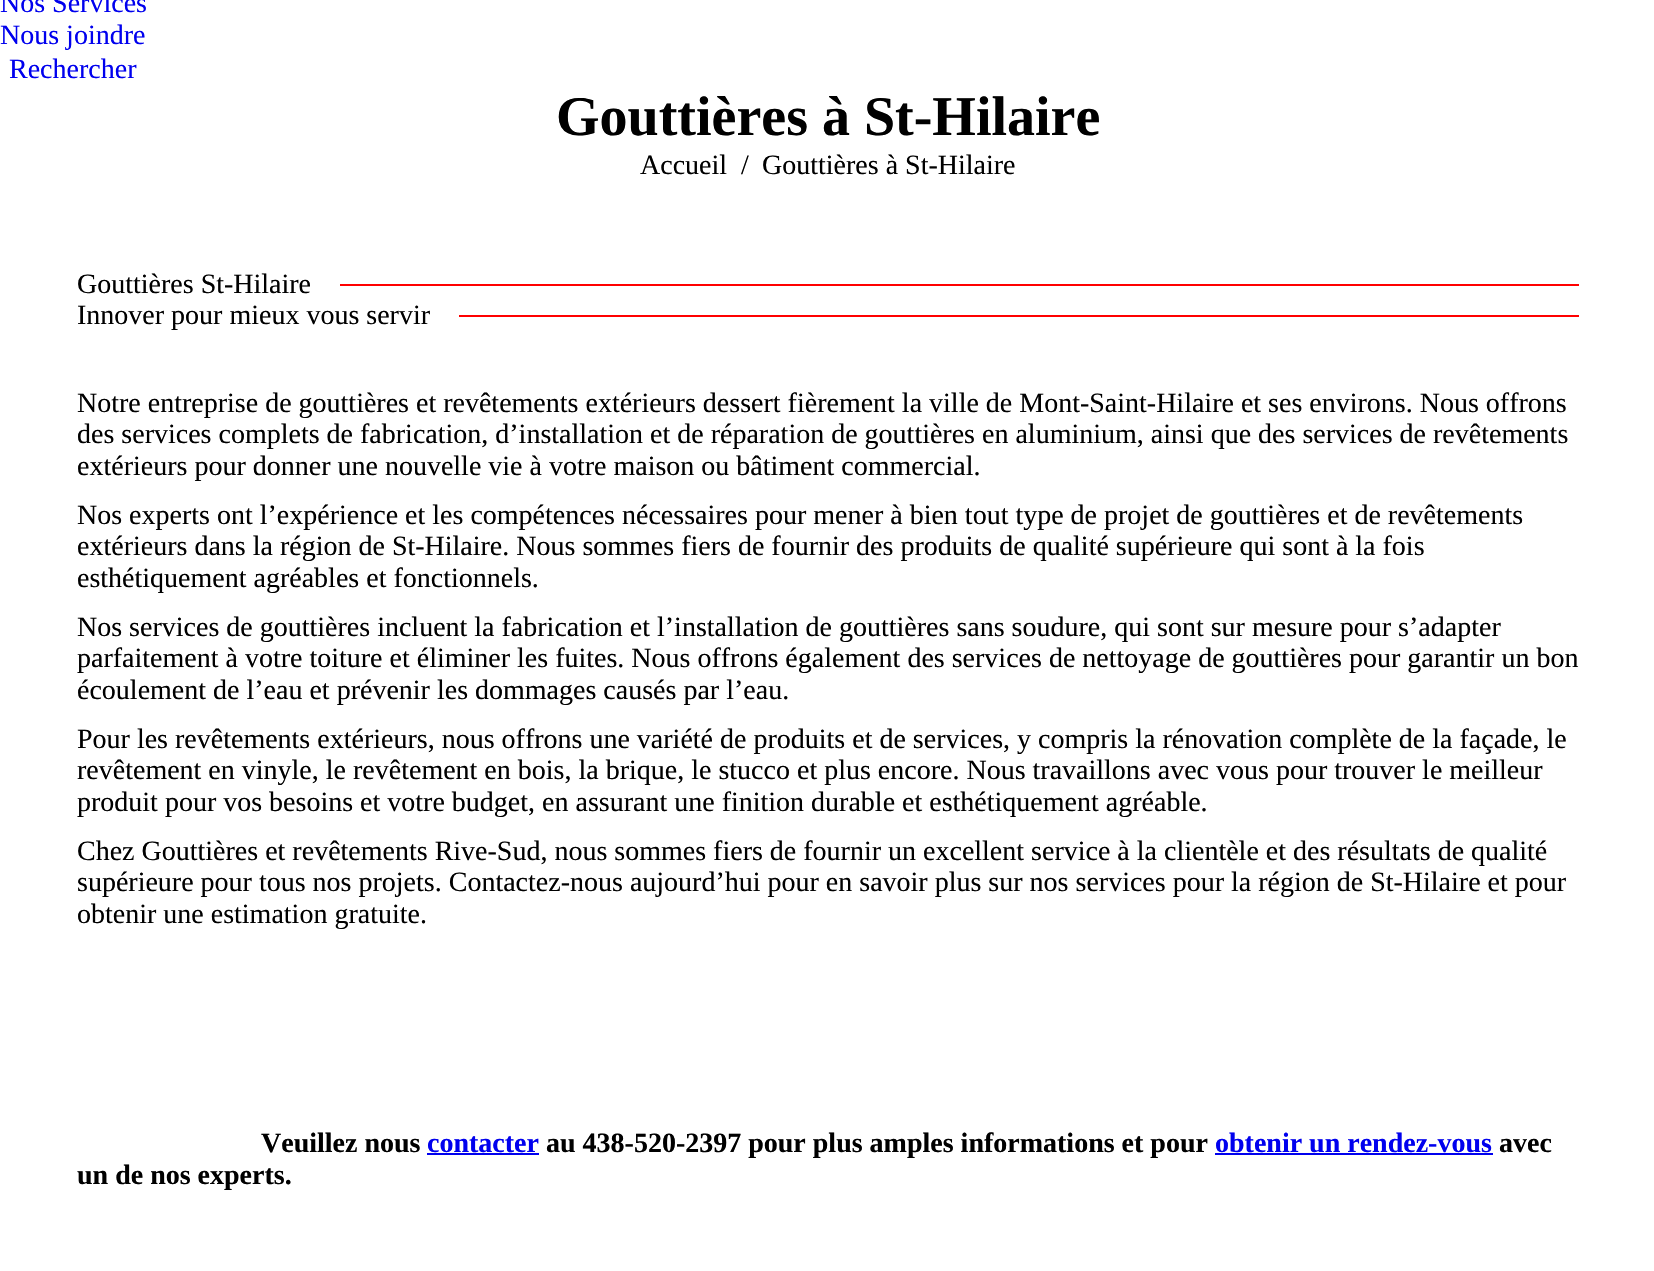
void draw(SkCanvas* canvas) {
  SkPaint paint;
  paint.setAntiAlias(true);
  auto face = [&](const char* family, int weight, float size, bool italic = false) {
    SkFontStyle style(weight, SkFontStyle::kNormal_Width,
      italic ? SkFontStyle::kItalic_Slant : SkFontStyle::kUpright_Slant);
    SkFont result(fontMgr->matchFamilyStyle(family, style), size);
    result.setSubpixel(true);
    return result;
  };
  canvas->clear(0xffffffff);
  {
    const struct { float x, y, w, h; SkColor color; } items[] = {
      {340, 284, 1239, 2, 0xffff0000},
      {459, 315, 1120, 2, 0xffff0000},
      {427, 1153, 112, 2, 0xff0000ee},
      {1215, 1153, 278, 2, 0xff0000ee},
    };
    for (auto [x, y, w, h, color] : items) {
      paint.setColor(color);
      canvas->drawRect(SkRect::MakeXYWH(x, y, w, h), paint);
    }
  }
  auto f0 = face("Liberation Serif", 400, 28);
  {
    const struct { const char* s; float x, y; } items[] = {
      {"Nos Services", 0, 12},
      {"Nous joindre", 0, 44},
      {"Rechercher", 9, 78},
    };
    for (auto [s, x, y] : items) {
      canvas->drawString(s, x, y, f0, paint);
    }
  }
  auto f1 = face("Liberation Serif", 700, 56);
  paint.setColor(0xff000000);
  canvas->drawString("Gouttières à St-Hilaire", 556, 135, f1, paint);
  {
    const struct { const char* s; float x, y; } items[] = {
      {"Accueil", 640, 174},
      {"/", 741, 174},
      {"Gouttières à St-Hilaire", 762, 174},
      {"Gouttières St-Hilaire", 77, 293},
      {"Innover pour mieux vous servir", 77, 324},
      {"Notre entreprise de gouttières et revêtements extérieurs dessert fièrement la ville de Mont-Saint-Hilaire et ses environs. Nous offrons", 77, 412},
      {"des services complets de fabrication, d’installation et de réparation de gouttières en aluminium, ainsi que des services de revêtements", 77, 443},
      {"extérieurs pour donner une nouvelle vie à votre maison ou bâtiment commercial.", 77, 475},
      {"Nos experts ont l’expérience et les compétences nécessaires pour mener à bien tout type de projet de gouttières et de revêtements", 77, 524},
      {"extérieurs dans la région de St-Hilaire. Nous sommes fiers de fournir des produits de qualité supérieure qui sont à la fois", 77, 555},
      {"esthétiquement agréables et fonctionnels.", 77, 587},
      {"Nos services de gouttières incluent la fabrication et l’installation de gouttières sans soudure, qui sont sur mesure pour s’adapter", 77, 636},
      {"parfaitement à votre toiture et éliminer les fuites. Nous offrons également des services de nettoyage de gouttières pour garantir un bon", 77, 667},
      {"écoulement de l’eau et prévenir les dommages causés par l’eau.", 77, 699},
      {"Pour les revêtements extérieurs, nous offrons une variété de produits et de services, y compris la rénovation complète de la façade, le", 77, 748},
      {"revêtement en vinyle, le revêtement en bois, la brique, le stucco et plus encore. Nous travaillons avec vous pour trouver le meilleur", 77, 779},
      {"produit pour vos besoins et votre budget, en assurant une finition durable et esthétiquement agréable.", 77, 811},
      {"Chez Gouttières et revêtements Rive-Sud, nous sommes fiers de fournir un excellent service à la clientèle et des résultats de qualité", 77, 860},
      {"supérieure pour tous nos projets. Contactez-nous aujourd’hui pour en savoir plus sur nos services pour la région de St-Hilaire et pour", 77, 891},
      {"obtenir une estimation gratuite.", 77, 923},
    };
    for (auto [s, x, y] : items) {
      canvas->drawString(s, x, y, f0, paint);
    }
  }
  auto f2 = face("Liberation Serif", 700, 28);
  canvas->drawString("Veuillez nous", 261, 1152, f2, paint);
  paint.setColor(0xff0000ee);
  canvas->drawString("contacter", 427, 1152, f2, paint);
  paint.setColor(0xff000000);
  canvas->drawString("au 438-520-2397 pour plus amples informations et pour", 546, 1152, f2, paint);
  paint.setColor(0xff0000ee);
  canvas->drawString("obtenir un rendez-vous", 1215, 1152, f2, paint);
  paint.setColor(0xff000000);
  canvas->drawString("avec", 1499, 1152, f2, paint);
  canvas->drawString("un de nos experts.", 77, 1184, f2, paint);
}
